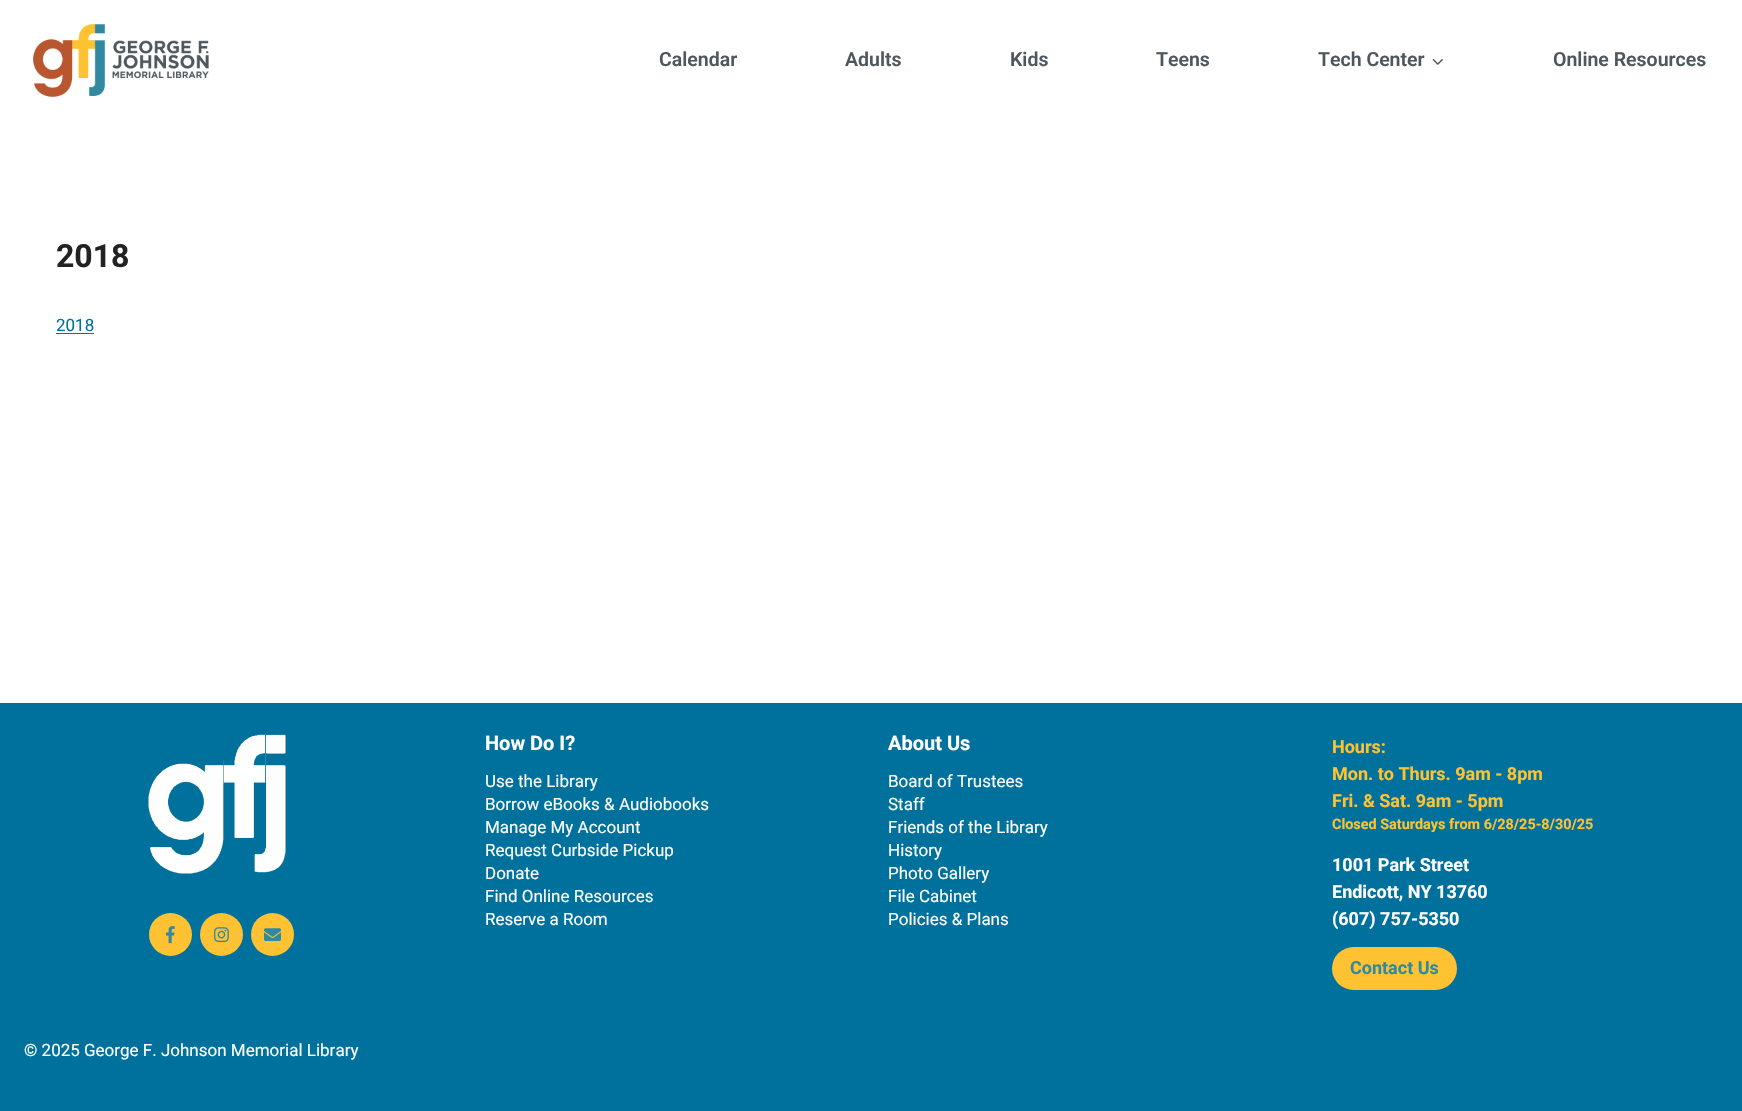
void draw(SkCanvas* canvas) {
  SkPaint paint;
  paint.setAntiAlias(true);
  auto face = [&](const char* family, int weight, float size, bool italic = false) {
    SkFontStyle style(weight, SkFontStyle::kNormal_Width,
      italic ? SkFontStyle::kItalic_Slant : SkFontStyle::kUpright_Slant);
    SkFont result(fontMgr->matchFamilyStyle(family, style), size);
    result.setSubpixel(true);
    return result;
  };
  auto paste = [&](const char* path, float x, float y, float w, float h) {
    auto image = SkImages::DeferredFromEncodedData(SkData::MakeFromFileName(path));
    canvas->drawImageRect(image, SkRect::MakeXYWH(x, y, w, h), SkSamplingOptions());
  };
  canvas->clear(0xffffffff);
  paste("img/1.png", 32, 24, 177, 74);
  paste("img/2.png", 1432, 59, 11, 6);
  paint.setColor(0xff00719c);
  canvas->drawRect(SkRect::MakeXYWH(56, 333, 38, 1), paint);
  canvas->drawRect(SkRect::MakeXYWH(0, 703, 1742, 408), paint);
  paste("img/3.png", 148, 733, 138, 141);
  paint.setColor(0xffffc233);
  canvas->drawCircle(170.5f, 934.5f, 21.5f, paint);
  paste("img/4.png", 166, 926, 9, 18);
  canvas->drawCircle(221.5f, 934.5f, 21.5f, paint);
  paste("img/5.png", 214, 927, 15, 16);
  canvas->drawCircle(272.5f, 934.5f, 21.5f, paint);
  paste("img/6.png", 264, 928, 17, 13);
  canvas->drawRoundRect(SkRect::MakeXYWH(1332, 947, 125, 43), 21.5f, 21.5f, paint);
  auto f0 = face("Roboto", 600, 19.5f);
  paint.setColor(0xff4e575e);
  {
    const struct { const char* s; float x, y; } items[] = {
      {"Calendar", 659, 66},
      {"Adults", 845, 66},
      {"Kids", 1010, 66},
      {"Teens", 1156, 66},
      {"Tech Center", 1318, 66},
      {"Online Resources", 1553, 66},
    };
    for (auto [s, x, y] : items) {
      canvas->drawString(s, x, y, f0, paint);
    }
  }
  auto f1 = face("Roboto", 700, 32);
  paint.setColor(0xff222222);
  canvas->drawString("2018", 56, 267, f1, paint);
  auto f2 = face("Roboto", 400, 17);
  paint.setColor(0xff00719c);
  canvas->drawString("2018", 56, 331, f2, paint);
  auto f3 = face("Roboto", 700, 20);
  paint.setColor(0xffffffff);
  canvas->drawString("How Do I?", 485, 750, f3, paint);
  {
    const struct { const char* s; float x, y; } items[] = {
      {"Use the Library", 485, 787},
      {"Borrow eBooks & Audiobooks", 485, 810},
      {"Manage My Account", 485, 833},
      {"Request Curbside Pickup", 485, 856},
      {"Donate", 485, 879},
      {"Find Online Resources", 485, 902},
      {"Reserve a Room", 485, 925},
    };
    for (auto [s, x, y] : items) {
      canvas->drawString(s, x, y, f2, paint);
    }
  }
  canvas->drawString("About Us", 888, 750, f3, paint);
  {
    const struct { const char* s; float x, y; } items[] = {
      {"Board of Trustees", 888, 787},
      {"Staff", 888, 810},
      {"Friends of the Library", 888, 833},
      {"History", 888, 856},
      {"Photo Gallery", 888, 879},
      {"File Cabinet", 888, 902},
      {"Policies & Plans", 888, 925},
    };
    for (auto [s, x, y] : items) {
      canvas->drawString(s, x, y, f2, paint);
    }
  }
  auto f4 = face("Roboto", 700, 18);
  paint.setColor(0xffffc233);
  {
    const struct { const char* s; float x, y; } items[] = {
      {"Hours:", 1332, 753},
      {"Mon. to Thurs. 9am - 8pm", 1332, 780},
      {"Fri. & Sat. 9am - 5pm", 1332, 807},
    };
    for (auto [s, x, y] : items) {
      canvas->drawString(s, x, y, f4, paint);
    }
  }
  auto f5 = face("Roboto", 700, 14.4f);
  canvas->drawString("Closed Saturdays from 6/28/25-8/30/25", 1332, 829, f5, paint);
  paint.setColor(0xffffffff);
  {
    const struct { const char* s; float x, y; } items[] = {
      {"1001 Park Street", 1332, 871},
      {"Endicott, NY 13760", 1332, 898},
      {"(607) 757-5350", 1332, 925},
    };
    for (auto [s, x, y] : items) {
      canvas->drawString(s, x, y, f4, paint);
    }
  }
  paint.setColor(0xff3189a1);
  canvas->drawString("Contact Us", 1350, 974, f4, paint);
  paint.setColor(0xffffffff);
  canvas->drawString("© 2025 George F. Johnson Memorial Library", 24, 1056, f2, paint);
}
